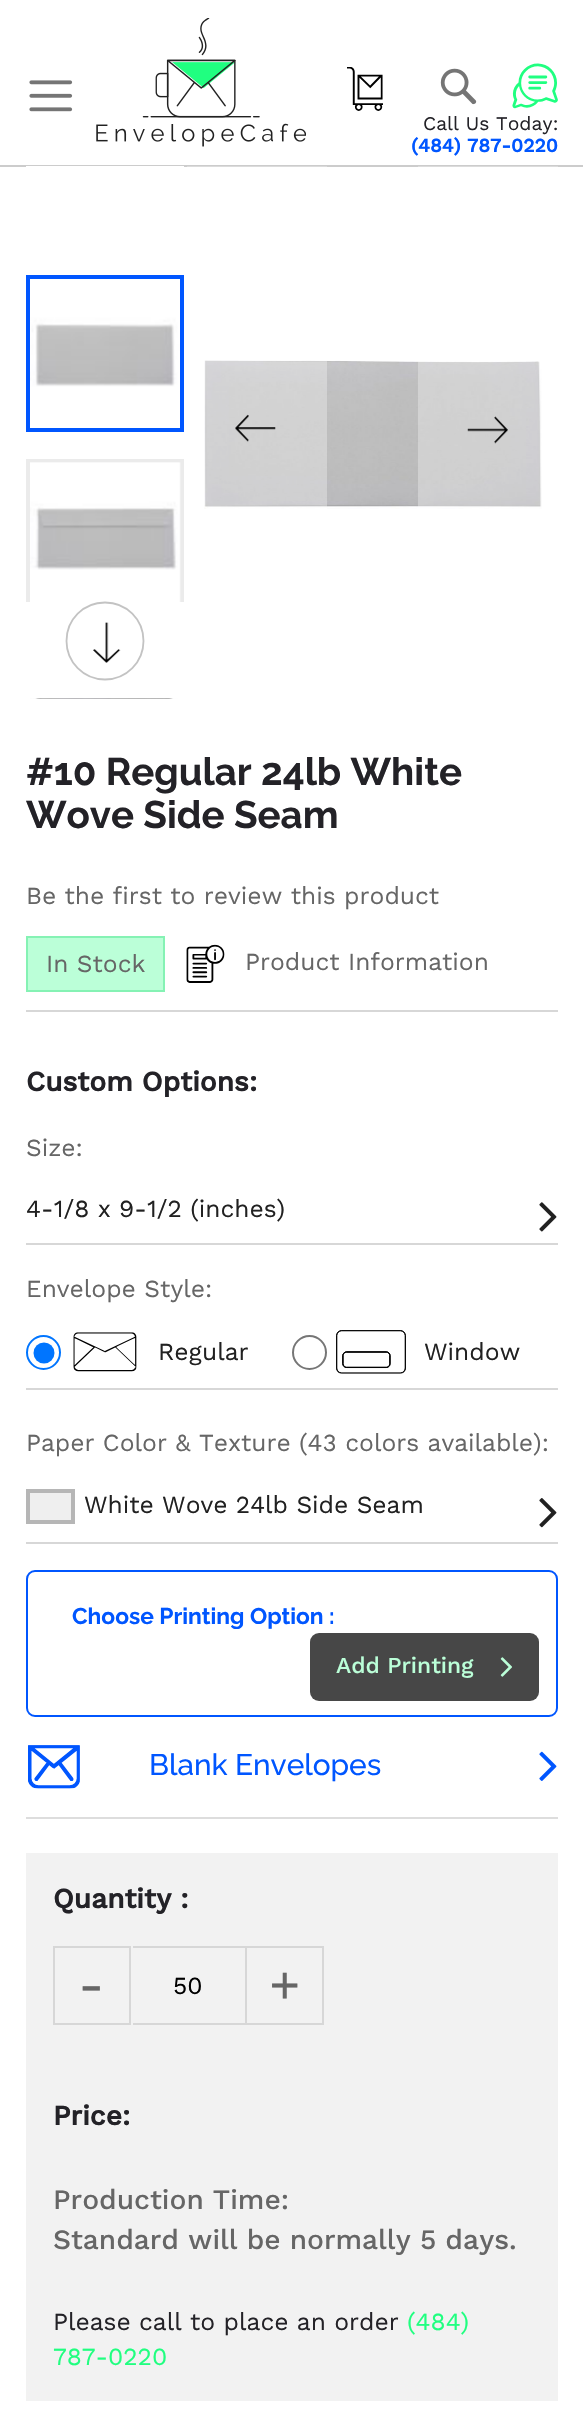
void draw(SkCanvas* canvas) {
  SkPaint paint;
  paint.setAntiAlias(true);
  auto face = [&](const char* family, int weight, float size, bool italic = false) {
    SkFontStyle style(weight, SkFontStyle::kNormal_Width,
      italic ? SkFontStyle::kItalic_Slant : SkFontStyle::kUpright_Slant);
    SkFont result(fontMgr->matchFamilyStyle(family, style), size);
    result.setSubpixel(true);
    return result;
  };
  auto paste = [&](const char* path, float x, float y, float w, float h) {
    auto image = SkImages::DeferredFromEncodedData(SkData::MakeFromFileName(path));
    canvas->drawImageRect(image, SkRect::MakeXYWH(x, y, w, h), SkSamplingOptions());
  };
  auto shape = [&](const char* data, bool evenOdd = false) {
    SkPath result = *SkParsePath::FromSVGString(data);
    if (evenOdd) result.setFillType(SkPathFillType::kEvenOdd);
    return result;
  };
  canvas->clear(0xffffffff);
  paint.setColor(0xffcccccc);
  canvas->drawRect(SkRect::MakeXYWH(0, 165, 583, 2), paint);
  paste("img/1.png", 29, 80, 44, 32);
  paste("img/2.png", 96, 18, 210, 129);
  paste("img/3.png", 347, 67, 36, 44);
  paste("img/4.png", 440, 68, 37, 37);
  paste("img/5.png", 512, 63, 46, 46);
  paint.setColor(0xffffffff);
  canvas->drawRect(SkRect::MakeXYWH(26, 166, 158, 1), paint);
  paste("img/6.png", 30, 279, 150, 149);
  paint.setStroke(true);
  paint.setStrokeWidth(4);
  paint.setColor(0xff0056ff);
  canvas->drawRect(SkRect::MakeXYWH(28, 277, 154, 153), paint);
  paint.setStroke(false);
  paint.setColor(0xffebebeb);
  canvas->drawRect(SkRect::MakeXYWH(26, 459, 158, 143), paint);
  paste("img/7.png", 30, 462, 151, 140);
  paste("img/8.png", 30, 698, 151, 1);
  paste("img/9.png", 93, 622, 28, 41);
  paint.setStroke(true);
  paint.setStrokeWidth(1.8f);
  paint.setColor(0xffc3c3c3);
  canvas->drawPath(shape("M143.5 641C143.5 662 126.5 679.5 105 679.5C83.5 679.5 66.5 662 66.5 641C66.5 619.5 83.5 602.5 105 602.5C126.5 602.5 143.5 619.5 143.5 641Z"), paint);
  paste("img/12.png", 204, 360, 338, 149);
  paint.setStroke(false);
  paint.setColor(0x4dffffff);
  canvas->drawRect(SkRect::MakeXYWH(187, 166, 140, 341), paint);
  paste("img/10.png", 235, 414, 41, 28);
  canvas->drawRect(SkRect::MakeXYWH(418, 166, 140, 341), paint);
  paste("img/11.png", 467, 416, 41, 28);
  paint.setColor(0xffd7d7d7);
  canvas->drawRect(SkRect::MakeXYWH(26, 1010, 532, 2), paint);
  paint.setColor(0xffbbffd8);
  canvas->drawRect(SkRect::MakeXYWH(27, 937, 137, 54), paint);
  paint.setStroke(true);
  paint.setStrokeWidth(2);
  paint.setColor(0xff85f2b4);
  canvas->drawRect(SkRect::MakeXYWH(27, 937, 137, 54), paint);
  paste("img/13.png", 186, 944, 39, 39);
  paint.setStroke(false);
  paint.setColor(0xffd7d7d7);
  canvas->drawRect(SkRect::MakeXYWH(26, 1243, 532, 2), paint);
  paste("img/14.png", 539, 1202, 18, 30);
  canvas->drawRect(SkRect::MakeXYWH(26, 1388, 532, 2), paint);
  paint.setStroke(true);
  paint.setColor(0xff0075ff);
  canvas->drawCircle(43.5f, 1352.5f, 16.5f, paint);
  paint.setStroke(false);
  canvas->drawCircle(44, 1353, 10.5f, paint);
  paste("img/15.png", 73, 1332, 64, 40);
  paint.setStroke(true);
  paint.setColor(0xff767676);
  canvas->drawCircle(309.5f, 1352.5f, 16.5f, paint);
  paste("img/16.png", 336, 1330, 70, 44);
  paint.setStroke(false);
  paint.setColor(0xffd7d7d7);
  canvas->drawRect(SkRect::MakeXYWH(26, 1542, 532, 2), paint);
  paint.setColor(0xffefefef);
  canvas->drawRect(SkRect::MakeXYWH(28, 1491, 45, 31), paint);
  paint.setStroke(true);
  paint.setStrokeWidth(4);
  paint.setColor(0xffb6b6b6);
  canvas->drawRect(SkRect::MakeXYWH(28, 1491, 45, 31), paint);
  paste("img/17.png", 539, 1498, 18, 30);
  paint.setStrokeWidth(2);
  paint.setColor(0xff0056ff);
  canvas->drawRoundRect(SkRect::MakeXYWH(27, 1571, 530, 145), 8, 8, paint);
  paint.setStroke(false);
  paint.setColor(0xff474747);
  canvas->drawRoundRect(SkRect::MakeXYWH(310, 1633, 229, 68), 9, 9, paint);
  paste("img/18.png", 500, 1657, 12, 20);
  paint.setColor(0xffdddddd);
  canvas->drawRect(SkRect::MakeXYWH(26, 1817, 532, 2), paint);
  paste("img/19.png", 28, 1745, 52, 44);
  paste("img/20.png", 539, 1751, 18, 30);
  paint.setColor(0xfff2f2f2);
  canvas->drawRect(SkRect::MakeXYWH(26, 1853, 532, 548), paint);
  paint.setStroke(true);
  paint.setColor(0xffd7d7d7);
  canvas->drawRect(SkRect::MakeXYWH(54, 1947, 76, 77), paint);
  paint.setStroke(false);
  canvas->drawRect(SkRect::MakeXYWH(133, 1946, 112, 2), paint);
  canvas->drawRect(SkRect::MakeXYWH(133, 2023, 112, 2), paint);
  paint.setStroke(true);
  canvas->drawRect(SkRect::MakeXYWH(246, 1947, 77, 77), paint);
  auto f0 = face("Work Sans", 400, 19.25f);
  paint.setStroke(false);
  paint.setColor(0xff232227);
  canvas->drawString("Call Us Today:", 423, 130, f0, paint);
  auto f1 = face("Work Sans", 700, 19.25f);
  paint.setColor(0xff0056ff);
  canvas->drawString("(484) 787-0220", 411, 152, f1, paint);
  auto f2 = face("Raleway", 700, 38.5f);
  paint.setColor(0xff232227);
  canvas->drawString("#10 Regular 24lb White", 26, 785, f2, paint);
  canvas->drawString("Wove Side Seam", 26, 828, f2, paint);
  auto f3 = face("Work Sans", 400, 24.5f);
  paint.setColor(0xff666666);
  {
    const struct { const char* s; float x, y; } items[] = {
      {"Be the first to review this product", 26, 904},
      {"In Stock", 46, 972},
      {"Product Information", 245, 970},
    };
    for (auto [s, x, y] : items) {
      canvas->drawString(s, x, y, f3, paint);
    }
  }
  auto f4 = face("Work Sans", 700, 28);
  paint.setColor(0xff232227);
  canvas->drawString("Custom Options:", 26, 1091, f4, paint);
  paint.setColor(0xff666666);
  canvas->drawString("Size:", 26, 1156, f3, paint);
  paint.setColor(0xff212121);
  canvas->drawString("4-1/8 x 9-1/2 (inches)", 26, 1217, f3, paint);
  paint.setColor(0xff666666);
  canvas->drawString("Envelope Style:", 26, 1297, f3, paint);
  paint.setColor(0xff212121);
  canvas->drawString("Regular", 158, 1360, f3, paint);
  canvas->drawString("Window", 424, 1360, f3, paint);
  paint.setColor(0xff666666);
  canvas->drawString("Paper Color & Texture (43 colors available):", 26, 1451, f3, paint);
  paint.setColor(0xff212121);
  canvas->drawString("White Wove 24lb Side Seam", 84, 1513, f3, paint);
  auto f5 = face("Raleway", 700, 22.75f);
  paint.setColor(0xff0056ff);
  canvas->drawString("Choose Printing Option :", 72, 1624, f5, paint);
  auto f6 = face("Work Sans", 500, 22.75f);
  paint.setColor(0xffbbffd8);
  canvas->drawString("Add Printing", 336, 1673, f6, paint);
  auto f7 = face("Raleway", 500, 29.75f);
  paint.setColor(0xff0056ff);
  canvas->drawString("Blank Envelopes", 149, 1775, f7, paint);
  paint.setColor(0xff232227);
  canvas->drawString("Quantity :", 53, 1908, f4, paint);
  auto f8 = face("Work Sans", 400, 52);
  paint.setColor(0xff666666);
  canvas->drawString("-", 78, 2002, f8, paint);
  paint.setColor(0xff000000);
  canvas->drawString("50", 173, 1994, f3, paint);
  paint.setColor(0xff666666);
  canvas->drawString("+", 269, 2002, f8, paint);
  paint.setColor(0xff232227);
  canvas->drawString("Price:", 53, 2125, f4, paint);
  auto f9 = face("Work Sans", 500, 28);
  paint.setColor(0xff666666);
  canvas->drawString("Production Time:", 53, 2209, f9, paint);
  canvas->drawString("Standard will be normally 5 days.", 53, 2249, f9, paint);
  paint.setColor(0xff232227);
  canvas->drawString("Please call to place an order", 53, 2330, f3, paint);
  paint.setColor(0xff20ff80);
  canvas->drawString("(484)", 407, 2330, f3, paint);
  canvas->drawString("787-0220", 53, 2365, f3, paint);
}
